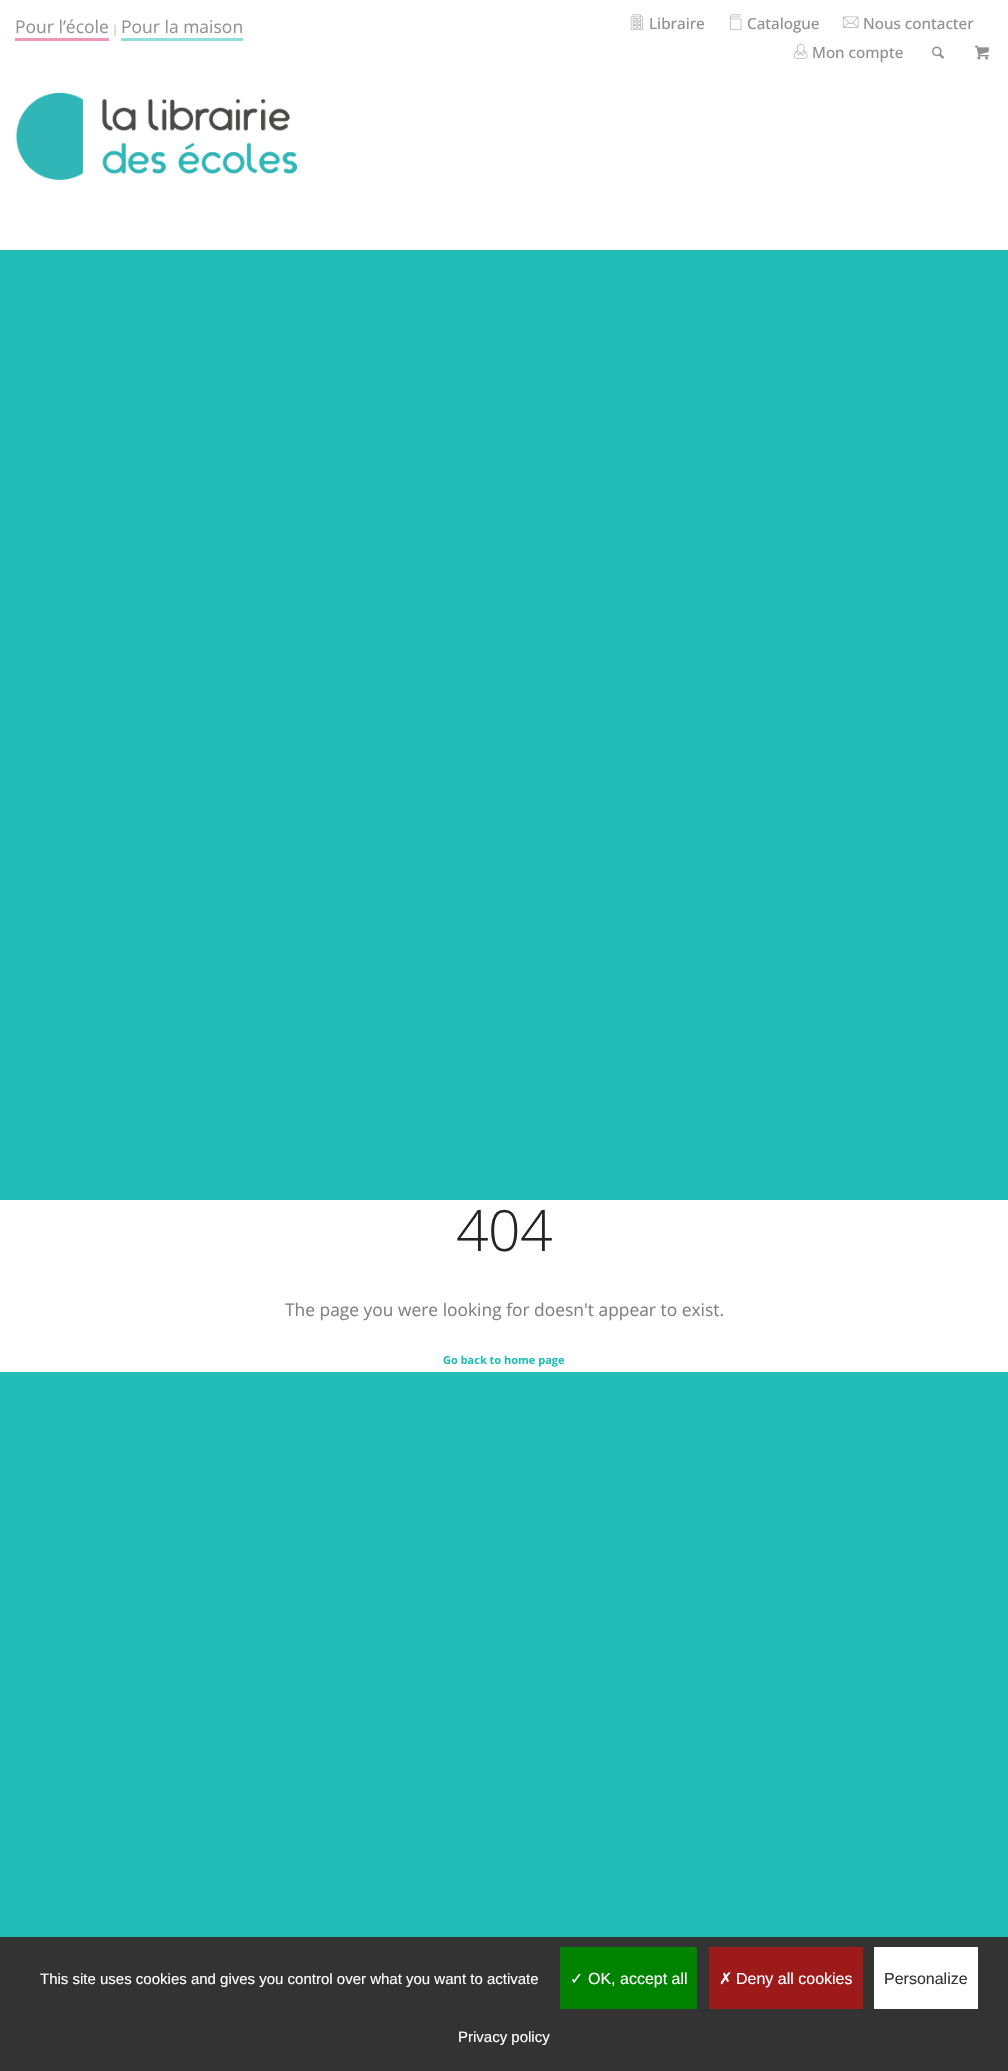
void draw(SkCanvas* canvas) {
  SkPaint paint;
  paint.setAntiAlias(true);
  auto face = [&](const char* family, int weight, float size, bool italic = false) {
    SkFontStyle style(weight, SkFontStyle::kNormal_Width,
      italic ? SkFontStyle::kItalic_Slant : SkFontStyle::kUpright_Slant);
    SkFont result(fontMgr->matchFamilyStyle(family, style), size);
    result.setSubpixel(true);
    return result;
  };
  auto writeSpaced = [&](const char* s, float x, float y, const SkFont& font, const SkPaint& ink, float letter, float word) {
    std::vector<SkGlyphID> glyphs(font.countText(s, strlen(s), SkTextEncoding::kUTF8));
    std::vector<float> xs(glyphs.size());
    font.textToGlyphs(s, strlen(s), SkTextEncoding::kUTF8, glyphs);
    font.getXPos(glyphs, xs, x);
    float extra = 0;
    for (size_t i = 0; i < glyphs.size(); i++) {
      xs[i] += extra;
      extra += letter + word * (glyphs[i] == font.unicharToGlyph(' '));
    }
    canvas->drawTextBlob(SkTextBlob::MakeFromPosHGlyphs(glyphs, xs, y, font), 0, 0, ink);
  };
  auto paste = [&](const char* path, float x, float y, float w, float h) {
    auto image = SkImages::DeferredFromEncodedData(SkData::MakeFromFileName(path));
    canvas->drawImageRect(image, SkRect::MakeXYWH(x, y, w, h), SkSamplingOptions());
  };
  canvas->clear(0xffffffff);
  paint.setColor(0xffef97b6);
  canvas->drawRect(SkRect::MakeXYWH(15, 38, 94, 3), paint);
  paint.setColor(0xff91dedb);
  canvas->drawRect(SkRect::MakeXYWH(121, 38, 122, 3), paint);
  paste("img/1.png", 630, 14, 13, 16);
  paste("img/2.png", 730, 14, 12, 16);
  paste("img/3.png", 843, 16, 16, 12);
  paste("img/4.png", 794, 44, 14, 15);
  paste("img/5.png", 932, 46, 12, 13);
  paste("img/6.png", 975, 45, 14, 15);
  paste("img/7.png", 16, 93, 282, 87);
  {
    const struct { float x, y, w, h; SkColor color; } items[] = {
      {0, 250, 1008, 1687, 0xff23bdb7},
      {0, 1200, 1008, 172, 0xffffffff},
      {0, 1937, 1008, 134, 0xff333333},
      {560, 1947, 137, 62, 0xff008300},
      {709, 1947, 154, 62, 0xff9c1a1a},
      {874, 1947, 104, 62, 0xffffffff},
    };
    for (auto [x, y, w, h, color] : items) {
      paint.setColor(color);
      canvas->drawRect(SkRect::MakeXYWH(x, y, w, h), paint);
    }
  }
  auto f0 = face("Open Sans", 400, 17.5f);
  paint.setColor(0xff929292);
  canvas->drawString("Pour l’école", 15, 33, f0, paint);
  auto f1 = face("Open Sans", 400, 11);
  paint.setColor(0xffb3b3b3);
  canvas->drawString("|", 112, 33, f1, paint);
  paint.setColor(0xff929292);
  canvas->drawString("Pour la maison", 121, 33, f0, paint);
  auto f2 = face("Open Sans", 500, 15.25f);
  {
    const struct { const char* s; float x, y; } items[] = {
      {"Libraire", 649, 29},
      {"Catalogue", 747, 29},
      {"Nous contacter", 863, 29},
      {"Mon compte", 812, 58},
    };
    for (auto [s, x, y] : items) {
      canvas->drawString(s, x, y, f2, paint);
    }
  }
  auto f3 = face("Open Sans", 300, 57);
  paint.setColor(0xff252525);
  writeSpaced("404", 456, 1251, f3, paint, -0.5f, 0);
  auto f4 = face("Open Sans", 400, 17.4f);
  paint.setColor(0xff808080);
  canvas->drawString("The page you were looking for doesn't appear to exist.", 285, 1316, f4, paint);
  auto f5 = face("Open Sans", 700, 11);
  paint.setColor(0xff23bdb7);
  canvas->drawString("Go back to home page", 443, 1364, f5, paint);
  auto f6 = face("Liberation Sans", 400, 15);
  paint.setColor(0xffffffff);
  canvas->drawString("This site uses cookies and gives you control over what you want to activate", 40, 1984, f6, paint);
  auto f7 = face("DejaVu Sans", 400, 16);
  canvas->drawString("✓", 570, 1984, f7, paint);
  auto f8 = face("Liberation Sans", 400, 16);
  canvas->drawString("OK, accept all", 588, 1984, f8, paint);
  canvas->drawString("✗", 719, 1984, f7, paint);
  canvas->drawString("Deny all cookies", 736, 1984, f8, paint);
  paint.setColor(0xff333333);
  canvas->drawString("Personalize", 884, 1984, f8, paint);
  paint.setColor(0xffffffff);
  canvas->drawString("Privacy policy", 458, 2042, f6, paint);
}
